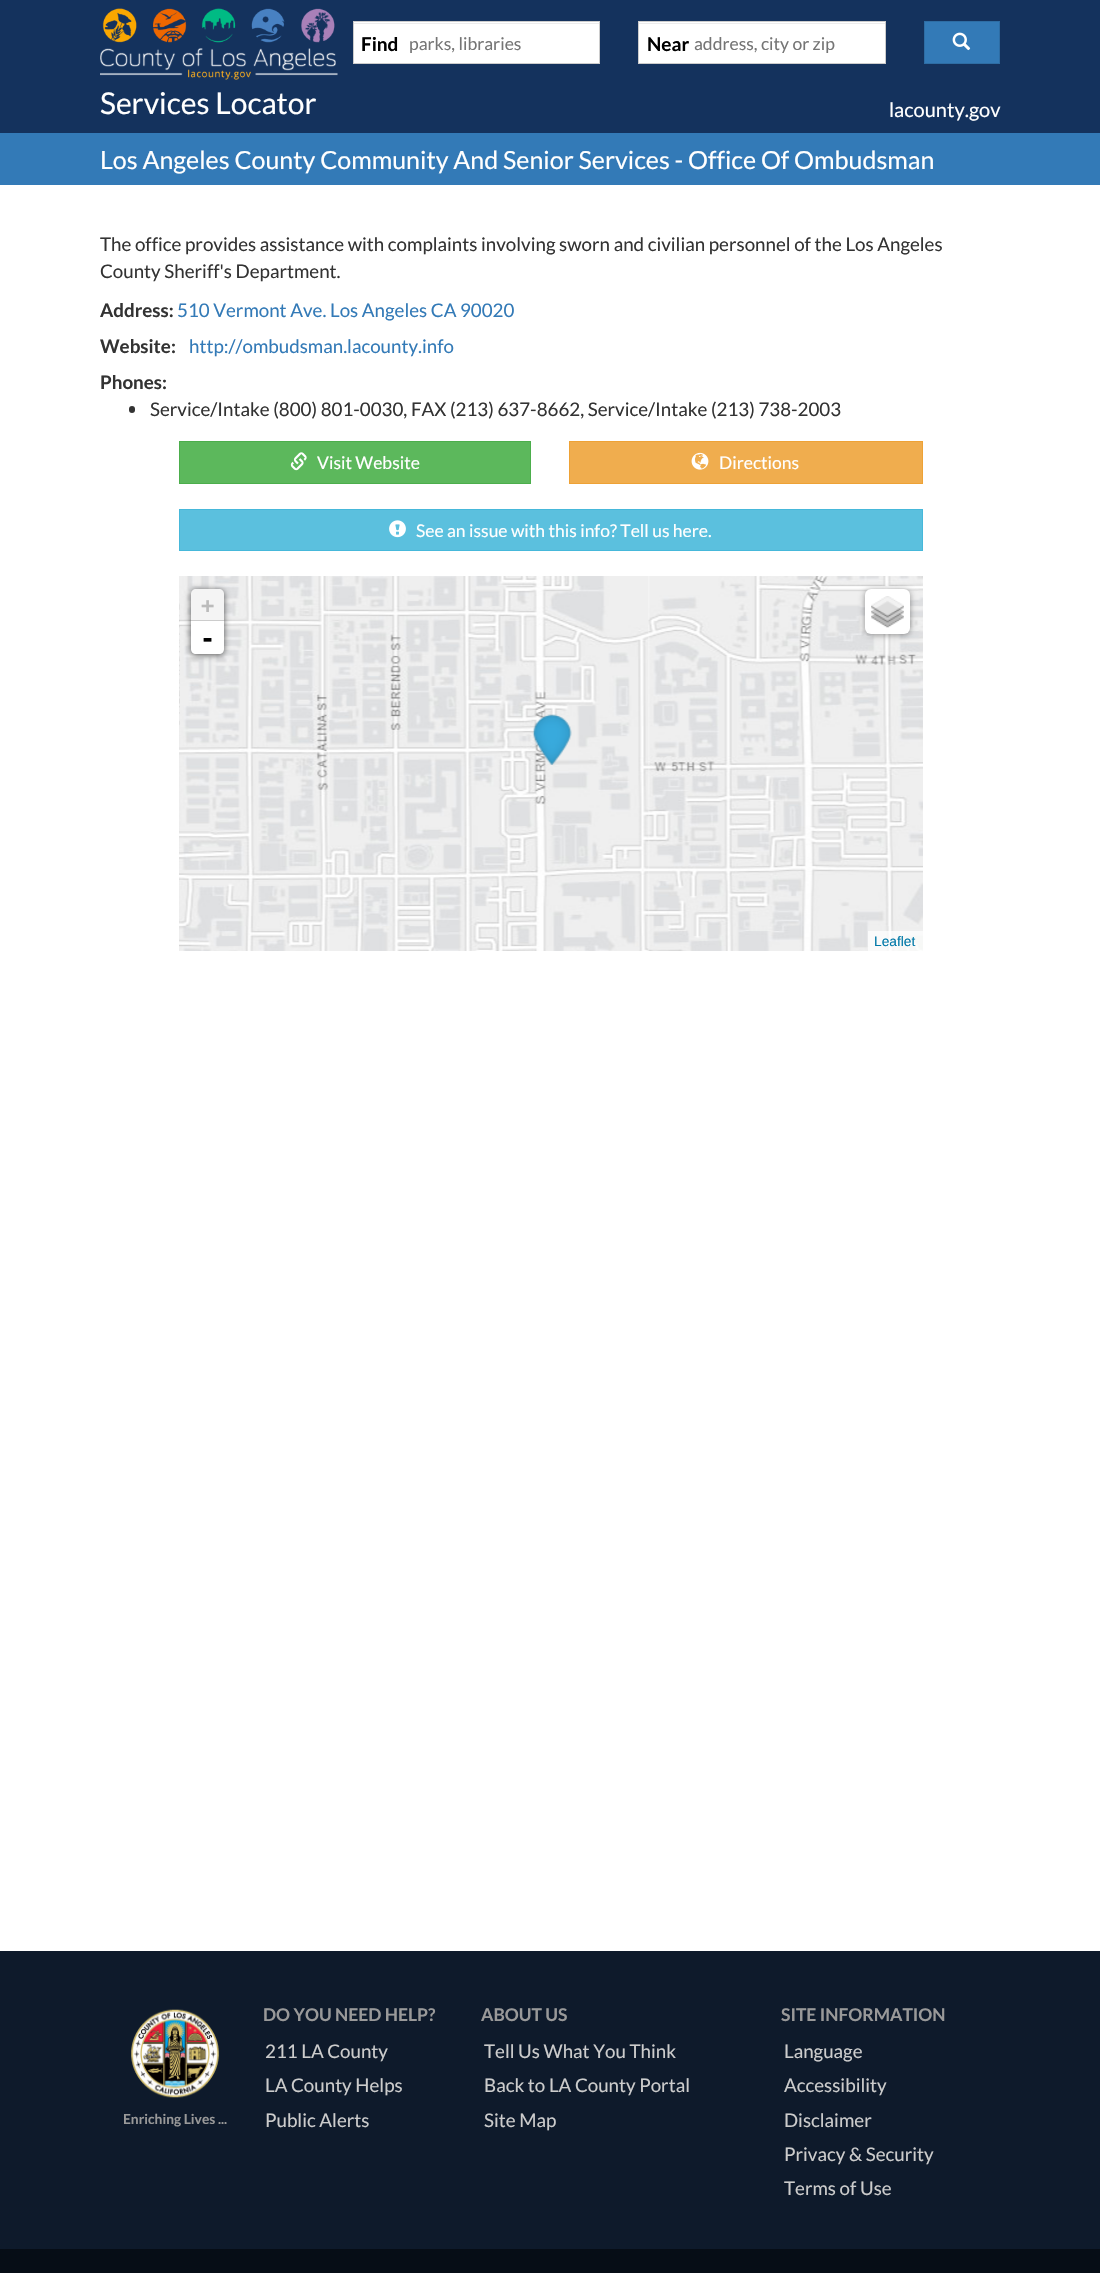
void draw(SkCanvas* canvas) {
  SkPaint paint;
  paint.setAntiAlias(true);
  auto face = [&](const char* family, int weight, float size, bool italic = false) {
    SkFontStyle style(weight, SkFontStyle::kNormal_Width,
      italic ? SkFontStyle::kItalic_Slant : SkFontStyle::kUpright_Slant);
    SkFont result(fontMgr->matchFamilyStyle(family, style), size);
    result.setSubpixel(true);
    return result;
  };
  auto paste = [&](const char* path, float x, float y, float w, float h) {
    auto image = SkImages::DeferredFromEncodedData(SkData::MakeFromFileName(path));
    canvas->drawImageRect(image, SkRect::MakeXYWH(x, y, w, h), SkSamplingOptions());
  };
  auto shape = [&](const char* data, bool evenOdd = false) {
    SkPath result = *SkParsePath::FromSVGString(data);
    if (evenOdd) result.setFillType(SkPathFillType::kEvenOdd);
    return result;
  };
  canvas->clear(0xffffffff);
  {
    const struct { float x, y, w, h; SkColor color; } items[] = {
      {0, 0, 1100, 133, 0xff14325d},
      {354, 22, 245, 41, 0xffffffff},
      {354, 23, 245, 1, 0xffececec},
    };
    for (auto [x, y, w, h, color] : items) {
      paint.setColor(color);
      canvas->drawRect(SkRect::MakeXYWH(x, y, w, h), paint);
    }
  }
  paint.setStroke(true);
  paint.setStrokeWidth(1);
  paint.setColor(0xffcccccc);
  canvas->drawRect(SkRect::MakeXYWH(353.5f, 21.5f, 246, 42), paint);
  paint.setStroke(false);
  paint.setColor(0xffffffff);
  canvas->drawRect(SkRect::MakeXYWH(639, 22, 246, 41), paint);
  paint.setColor(0xffececec);
  canvas->drawRect(SkRect::MakeXYWH(639, 23, 246, 1), paint);
  paint.setStroke(true);
  paint.setColor(0xffcccccc);
  canvas->drawRect(SkRect::MakeXYWH(638.5f, 21.5f, 247, 42), paint);
  paint.setStroke(false);
  paint.setColor(0xff337ab7);
  canvas->drawRect(SkRect::MakeXYWH(924.5f, 21.5f, 75, 42), paint);
  paint.setStroke(true);
  paint.setColor(0xff2e6da4);
  canvas->drawRect(SkRect::MakeXYWH(924.5f, 21.5f, 75, 42), paint);
  paste("img/1.png", 952, 32, 19, 19);
  paste("img/2.png", 100, 8, 238, 72);
  paint.setStroke(false);
  paint.setColor(0xff337ab7);
  canvas->drawRect(SkRect::MakeXYWH(0, 133, 1100, 52), paint);
  paint.setColor(0xff333333);
  canvas->drawRoundRect(SkRect::MakeXYWH(129, 406, 6, 7), 3, 3, paint);
  paint.setColor(0xff5cb85c);
  canvas->drawRect(SkRect::MakeXYWH(179.5f, 441.5f, 351, 42), paint);
  paint.setStroke(true);
  paint.setColor(0xff4cae4c);
  canvas->drawRect(SkRect::MakeXYWH(179.5f, 441.5f, 351, 42), paint);
  paste("img/3.png", 290, 452, 17, 19);
  paint.setStroke(false);
  paint.setColor(0xfff0ad4e);
  canvas->drawRect(SkRect::MakeXYWH(569.5f, 441.5f, 353, 42), paint);
  paint.setStroke(true);
  paint.setColor(0xffeea236);
  canvas->drawRect(SkRect::MakeXYWH(569.5f, 441.5f, 353, 42), paint);
  paste("img/4.png", 691, 452, 18, 18);
  paint.setStroke(false);
  paint.setColor(0xff5bc0de);
  canvas->drawRect(SkRect::MakeXYWH(179.5f, 509.5f, 743, 41), paint);
  paint.setStroke(true);
  paint.setColor(0xff46b8da);
  canvas->drawRect(SkRect::MakeXYWH(179.5f, 509.5f, 743, 41), paint);
  paste("img/5.png", 389, 520, 17, 18);
  paste("img/7.png", 328, 576, 322, 110);
  paste("img/6.png", 179, 576, 150, 110);
  paste("img/8.png", 648, 576, 275, 110);
  paste("img/10.png", 328, 686, 322, 265);
  paste("img/9.png", 179, 686, 150, 265);
  paste("img/11.png", 648, 686, 275, 265);
  paste("img/12.png", 533, 714, 39, 51);
  paint.setStroke(false);
  paint.setColor(0xa6000000);
  paint.setMaskFilter(SkMaskFilter::MakeBlur(kNormal_SkBlurStyle, 3));
  canvas->drawRoundRect(SkRect::MakeXYWH(191, 590, 33, 65), 5, 5, paint);
  paint.setMaskFilter(nullptr);
  paint.setColor(0xfff4f4f4);
  canvas->drawPath(shape("M196 589H219C222 589 224 591 224 594V621H191V594C191 591 193 589 196 589Z"), paint);
  paint.setColor(0xffcccccc);
  canvas->drawRect(SkRect::MakeXYWH(191, 620, 33, 1), paint);
  paint.setColor(0xffffffff);
  canvas->drawPath(shape("M191 621H224V649C224 652 222 654 219 654H196C193 654 191 652 191 649Z"), paint);
  paint.setColor(0x66000000);
  paint.setMaskFilter(SkMaskFilter::MakeBlur(kNormal_SkBlurStyle, 3));
  canvas->drawRoundRect(SkRect::MakeXYWH(865, 590, 45, 45), 6, 6, paint);
  paint.setMaskFilter(nullptr);
  paint.setColor(0xffffffff);
  canvas->drawRoundRect(SkRect::MakeXYWH(865, 589, 45, 45), 6, 6, paint);
  paste("img/13.png", 871, 596, 33, 32);
  paint.setColor(0xb3ffffff);
  canvas->drawRect(SkRect::MakeXYWH(868, 931, 55, 20), paint);
  paint.setColor(0xff0e1a2b);
  canvas->drawRect(SkRect::MakeXYWH(0, 1951, 1100, 298), paint);
  paste("img/14.png", 131, 2009, 88, 89);
  paint.setColor(0xff060d16);
  canvas->drawRect(SkRect::MakeXYWH(0, 2249, 1100, 24), paint);
  auto f0 = face("Lato", 700, 19);
  paint.setColor(0xff000000);
  canvas->drawString("Find", 361, 51, f0, paint);
  auto f1 = face("Lato", 400, 17.5f);
  paint.setColor(0xff757575);
  canvas->drawString("parks, libraries", 409, 50, f1, paint);
  paint.setColor(0xff000000);
  canvas->drawString("Near", 647, 51, f0, paint);
  paint.setColor(0xff757575);
  canvas->drawString("address, city or zip", 694, 50, f1, paint);
  auto f2 = face("Lato", 400, 30);
  paint.setColor(0xffffffff);
  canvas->drawString("Services Locator", 100, 114, f2, paint);
  auto f3 = face("Lato", 400, 20);
  canvas->drawString("lacounty.gov", 889, 117, f3, paint);
  auto f4 = face("Lato", 400, 25);
  canvas->drawString("Los Angeles County Community And Senior Services - Office Of Ombudsman", 100, 169, f4, paint);
  auto f5 = face("Lato", 400, 18.75f);
  paint.setColor(0xff333333);
  canvas->drawString("The office provides assistance with complaints involving sworn and civilian personnel of the Los Angeles", 100, 251, f5, paint);
  canvas->drawString("County Sheriff's Department.", 100, 278, f5, paint);
  auto f6 = face("Lato", 700, 18.75f);
  canvas->drawString("Address:", 100, 317, f6, paint);
  paint.setColor(0xff337ab7);
  canvas->drawString("510 Vermont Ave. Los Angeles CA 90020", 177, 317, f5, paint);
  paint.setColor(0xff333333);
  canvas->drawString("Website:", 100, 353, f6, paint);
  paint.setColor(0xff337ab7);
  canvas->drawString("http://ombudsman.lacounty.info", 189, 353, f5, paint);
  paint.setColor(0xff333333);
  canvas->drawString("Phones:", 100, 389, f6, paint);
  canvas->drawString("Service/Intake (800) 801-0030, FAX (213) 637-8662, Service/Intake (213) 738-2003", 150, 416, f5, paint);
  paint.setColor(0xffffffff);
  {
    const struct { const char* s; float x, y; } items[] = {
      {"Visit Website", 317, 469},
      {"Directions", 719, 469},
      {"See an issue with this info? Tell us here.", 416, 537},
    };
    for (auto [s, x, y] : items) {
      canvas->drawString(s, x, y, f1, paint);
    }
  }
  auto f7 = face("DejaVu Sans Mono", 700, 22);
  paint.setColor(0xffbbbbbb);
  canvas->drawString("+", 201, 613, f7, paint);
  auto f8 = face("DejaVu Sans Mono", 700, 25);
  paint.setColor(0xff000000);
  canvas->drawString("-", 200, 647, f8, paint);
  auto f9 = face("Liberation Sans", 400, 13.75f);
  paint.setColor(0xff0078a8);
  canvas->drawString("Leaflet", 874, 946, f9, paint);
  auto f10 = face("Lato", 700, 13.75f);
  paint.setColor(0xff999999);
  canvas->drawString("Enriching Lives ...", 123, 2124, f10, paint);
  auto f11 = face("Lato", 700, 17.5f);
  canvas->drawString("DO YOU NEED HELP?", 263, 2021, f11, paint);
  paint.setColor(0xffcccccc);
  {
    const struct { const char* s; float x, y; } items[] = {
      {"211 LA County", 265, 2058},
      {"LA County Helps", 265, 2092},
      {"Public Alerts", 265, 2127},
    };
    for (auto [s, x, y] : items) {
      canvas->drawString(s, x, y, f5, paint);
    }
  }
  paint.setColor(0xff999999);
  canvas->drawString("ABOUT US", 481, 2021, f11, paint);
  paint.setColor(0xffcccccc);
  {
    const struct { const char* s; float x, y; } items[] = {
      {"Tell Us What You Think", 484, 2058},
      {"Back to LA County Portal", 484, 2092},
      {"Site Map", 484, 2127},
    };
    for (auto [s, x, y] : items) {
      canvas->drawString(s, x, y, f5, paint);
    }
  }
  paint.setColor(0xff999999);
  canvas->drawString("SITE INFORMATION", 781, 2021, f11, paint);
  paint.setColor(0xffcccccc);
  {
    const struct { const char* s; float x, y; } items[] = {
      {"Language", 784, 2058},
      {"Accessibility", 784, 2092},
      {"Disclaimer", 784, 2127},
      {"Privacy & Security", 784, 2161},
      {"Terms of Use", 784, 2195},
    };
    for (auto [s, x, y] : items) {
      canvas->drawString(s, x, y, f5, paint);
    }
  }
}
